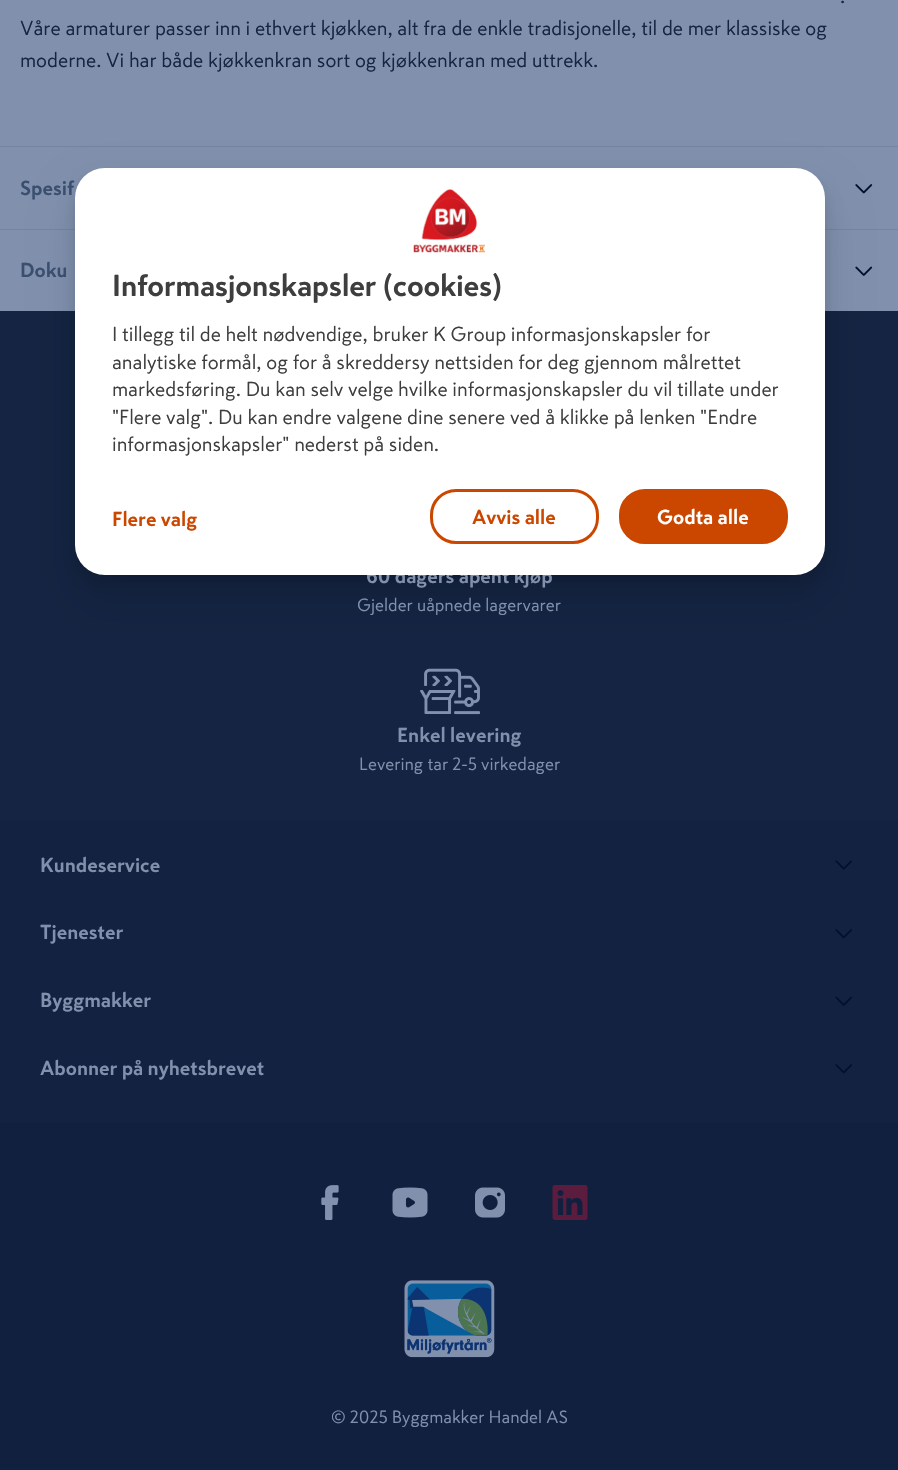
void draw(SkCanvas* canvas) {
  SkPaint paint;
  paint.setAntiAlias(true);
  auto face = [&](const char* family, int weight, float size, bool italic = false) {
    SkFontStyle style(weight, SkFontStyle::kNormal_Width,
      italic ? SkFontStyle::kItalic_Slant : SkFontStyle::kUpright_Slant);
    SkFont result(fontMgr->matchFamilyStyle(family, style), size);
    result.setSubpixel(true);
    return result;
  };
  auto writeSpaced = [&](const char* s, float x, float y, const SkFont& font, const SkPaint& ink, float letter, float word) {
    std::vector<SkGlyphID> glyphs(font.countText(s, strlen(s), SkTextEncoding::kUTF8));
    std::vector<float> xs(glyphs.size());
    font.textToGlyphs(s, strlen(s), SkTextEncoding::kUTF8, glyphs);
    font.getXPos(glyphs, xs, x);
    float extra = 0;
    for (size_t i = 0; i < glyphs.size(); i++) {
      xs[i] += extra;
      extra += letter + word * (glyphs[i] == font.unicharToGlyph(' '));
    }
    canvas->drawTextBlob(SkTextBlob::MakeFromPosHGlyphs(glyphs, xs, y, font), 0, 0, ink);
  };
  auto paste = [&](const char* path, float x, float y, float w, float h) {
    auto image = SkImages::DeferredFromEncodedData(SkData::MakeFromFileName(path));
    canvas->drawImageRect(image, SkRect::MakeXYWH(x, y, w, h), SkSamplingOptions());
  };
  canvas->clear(0xff8090ad);
  paint.setColor(0xff7484a1);
  canvas->drawRect(SkRect::MakeXYWH(0, 146, 898, 1), paint);
  paste("img/1.png", 855, 184, 18, 10);
  canvas->drawRect(SkRect::MakeXYWH(0, 229, 898, 1), paint);
  paste("img/2.png", 855, 266, 18, 10);
  paint.setColor(0xff142442);
  canvas->drawRect(SkRect::MakeXYWH(0, 311, 898, 509), paint);
  paste("img/3.png", 420, 668, 60, 47);
  paint.setColor(0xff122240);
  canvas->drawRect(SkRect::MakeXYWH(0, 820, 898, 303), paint);
  paste("img/4.png", 835, 860, 17, 10);
  paste("img/5.png", 835, 929, 17, 10);
  paste("img/6.png", 835, 996, 17, 10);
  paste("img/5.png", 835, 1064, 17, 10);
  paint.setColor(0xff10203e);
  canvas->drawRect(SkRect::MakeXYWH(0, 1123, 898, 347), paint);
  paste("img/7.png", 321, 1185, 18, 35);
  paste("img/8.png", 392, 1187, 36, 31);
  paste("img/9.png", 475, 1187, 30, 31);
  paste("img/10.png", 552, 1185, 36, 35);
  paste("img/11.png", 404, 1280, 91, 78);
  paint.setColor(0x14000000);
  paint.setMaskFilter(SkMaskFilter::MakeBlur(kNormal_SkBlurStyle, 20));
  canvas->drawRoundRect(SkRect::MakeXYWH(73, 190, 755, 413), 33, 33, paint);
  paint.setMaskFilter(nullptr);
  paint.setColor(0x1f000000);
  paint.setMaskFilter(SkMaskFilter::MakeBlur(kNormal_SkBlurStyle, 7.5f));
  canvas->drawRoundRect(SkRect::MakeXYWH(75, 178, 750, 407), 30, 30, paint);
  paint.setMaskFilter(nullptr);
  auto f0 = face("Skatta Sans", 400, 20);
  paint.setColor(0xff152542);
  {
    const struct { const char* s; float x, y; } items[] = {
      {".", 840, 3},
      {"Våre armaturer passer inn i ethvert kjøkken, alt fra de enkle tradisjonelle, til de mer klassiske og", 20, 35},
      {"moderne. Vi har både kjøkkenkran sort og kjøkkenkran med uttrekk.", 20, 67},
    };
    for (auto [s, x, y] : items) {
      canvas->drawString(s, x, y, f0, paint);
    }
  }
  auto f1 = face("Skatta Sans", 700, 20);
  paint.setColor(0xff3a4f6f);
  canvas->drawString("Spesif", 20, 195, f1, paint);
  canvas->drawString("Doku", 20, 277, f1, paint);
  paint.setColor(0xff8090ad);
  canvas->drawString("60 dagers åpent kjøp", 366, 583, f1, paint);
  auto f2 = face("Skatta Sans", 400, 17.5f);
  canvas->drawString("Gjelder uåpnede lagervarer", 357, 611, f2, paint);
  canvas->drawString("Enkel levering", 397, 742, f1, paint);
  canvas->drawString("Levering tar 2-5 virkedager", 359, 770, f2, paint);
  {
    const struct { const char* s; float x, y; } items[] = {
      {"Kundeservice", 40, 872},
      {"Tjenester", 40, 939},
      {"Byggmakker", 40, 1007},
      {"Abonner på nyhetsbrevet", 40, 1075},
    };
    for (auto [s, x, y] : items) {
      canvas->drawString(s, x, y, f1, paint);
    }
  }
  canvas->drawString("© 2025 Byggmakker Handel AS", 331, 1423, f2, paint);
  paint.setColor(0xffffffff);
  canvas->drawRoundRect(SkRect::MakeXYWH(75, 168, 750, 407), 30, 30, paint);
  paste("img/12.png", 413, 189, 72, 64);
  auto f3 = face("Skatta Sans", 700, 30);
  paint.setColor(0xff3e3e3e);
  writeSpaced("Informasjonskapsler (cookies)", 112, 296, f3, paint, -0.3f, 0);
  {
    const struct { const char* s; float x, y; } items[] = {
      {"I tillegg til de helt nødvendige, bruker K Group informasjonskapsler for", 112, 341},
      {"analytiske formål, og for å skreddersy nettsiden for deg gjennom målrettet", 112, 369},
      {"markedsføring. Du kan selv velge hvilke informasjonskapsler du vil tillate under", 112, 396},
      {"\"Flere valg\". Du kan endre valgene dine senere ved å klikke på lenken \"Endre", 112, 424},
      {"informasjonskapsler\" nederst på siden.", 112, 451},
    };
    for (auto [s, x, y] : items) {
      canvas->drawString(s, x, y, f0, paint);
    }
  }
  paint.setColor(0xffcb4700);
  canvas->drawString("Flere valg", 112, 526, f1, paint);
  paint.setStroke(true);
  paint.setStrokeWidth(3);
  canvas->drawRoundRect(SkRect::MakeXYWH(431.5f, 490.5f, 166, 52), 24.5f, 24.5f, paint);
  paint.setStroke(false);
  canvas->drawString("Avvis alle", 472, 524, f1, paint);
  canvas->drawRoundRect(SkRect::MakeXYWH(620.5f, 490.5f, 166, 52), 24.5f, 24.5f, paint);
  paint.setStroke(true);
  canvas->drawRoundRect(SkRect::MakeXYWH(620.5f, 490.5f, 166, 52), 24.5f, 24.5f, paint);
  paint.setStroke(false);
  paint.setColor(0xffffffff);
  canvas->drawString("Godta alle", 657, 524, f1, paint);
}
